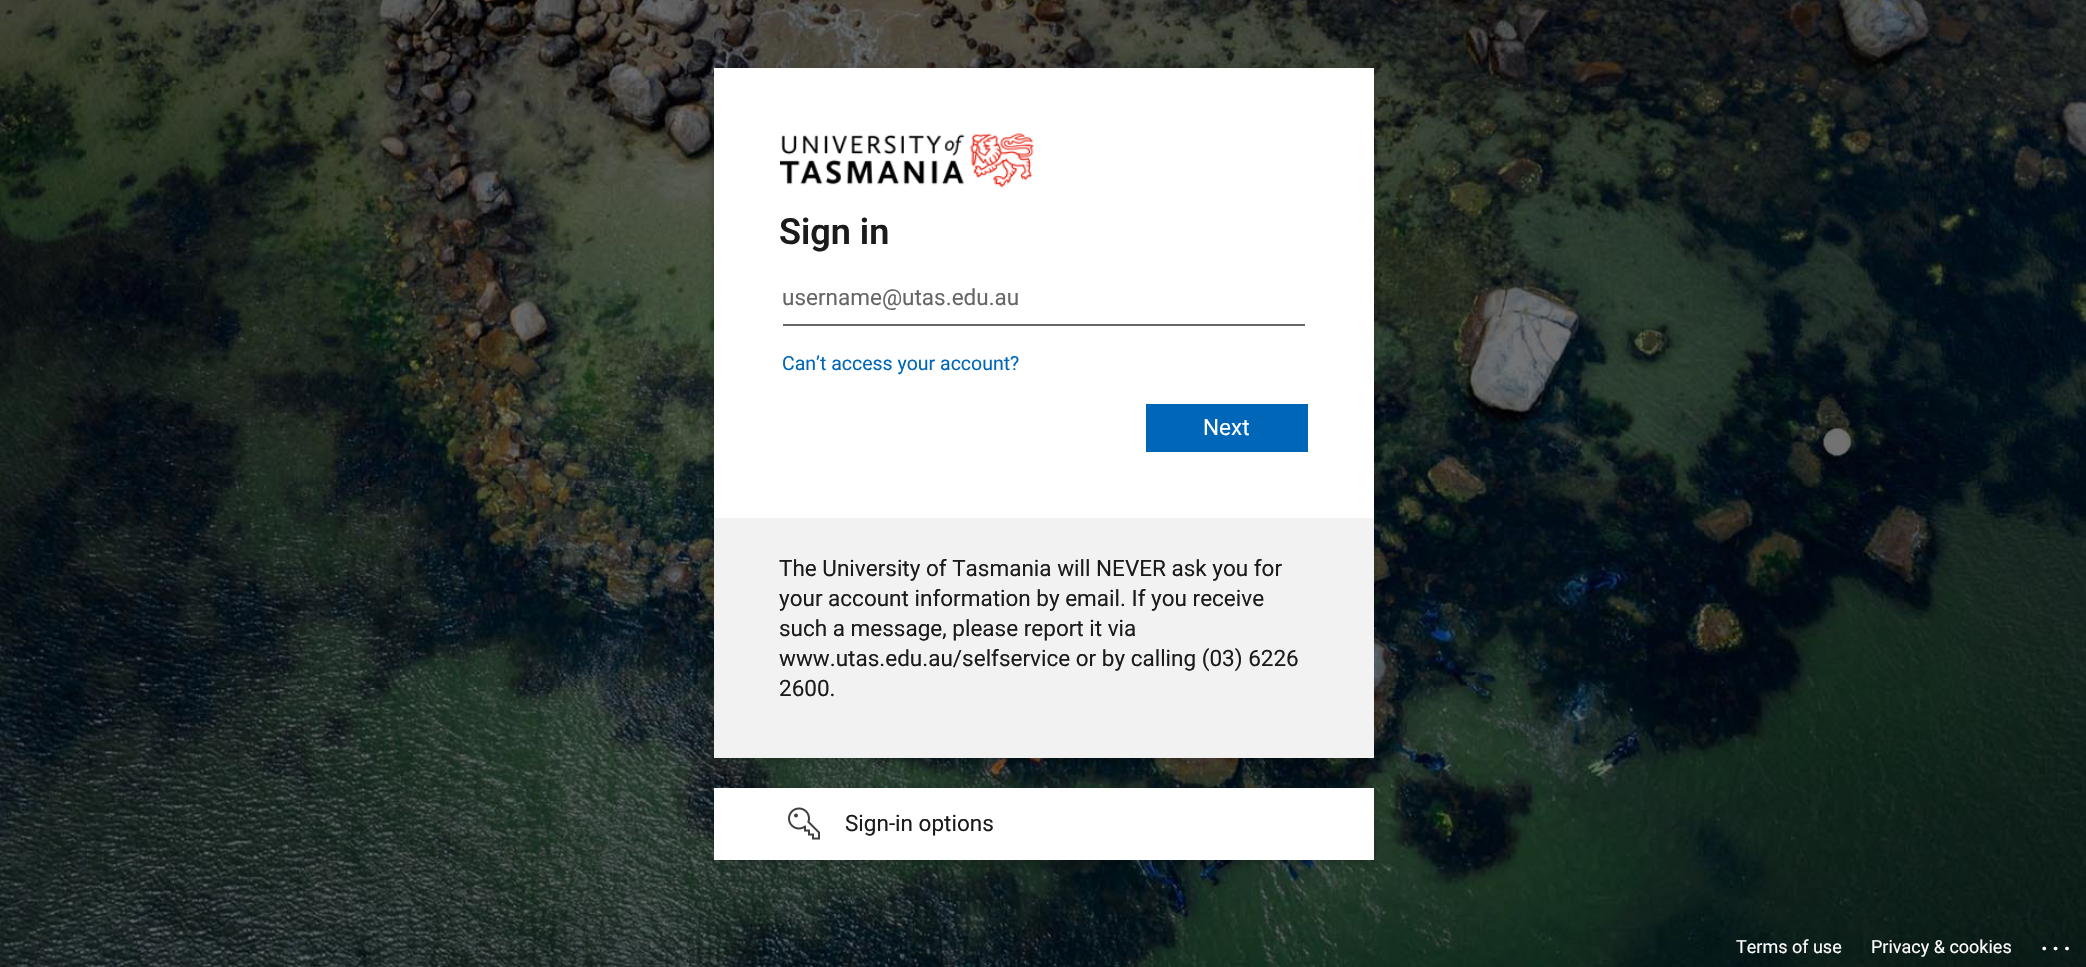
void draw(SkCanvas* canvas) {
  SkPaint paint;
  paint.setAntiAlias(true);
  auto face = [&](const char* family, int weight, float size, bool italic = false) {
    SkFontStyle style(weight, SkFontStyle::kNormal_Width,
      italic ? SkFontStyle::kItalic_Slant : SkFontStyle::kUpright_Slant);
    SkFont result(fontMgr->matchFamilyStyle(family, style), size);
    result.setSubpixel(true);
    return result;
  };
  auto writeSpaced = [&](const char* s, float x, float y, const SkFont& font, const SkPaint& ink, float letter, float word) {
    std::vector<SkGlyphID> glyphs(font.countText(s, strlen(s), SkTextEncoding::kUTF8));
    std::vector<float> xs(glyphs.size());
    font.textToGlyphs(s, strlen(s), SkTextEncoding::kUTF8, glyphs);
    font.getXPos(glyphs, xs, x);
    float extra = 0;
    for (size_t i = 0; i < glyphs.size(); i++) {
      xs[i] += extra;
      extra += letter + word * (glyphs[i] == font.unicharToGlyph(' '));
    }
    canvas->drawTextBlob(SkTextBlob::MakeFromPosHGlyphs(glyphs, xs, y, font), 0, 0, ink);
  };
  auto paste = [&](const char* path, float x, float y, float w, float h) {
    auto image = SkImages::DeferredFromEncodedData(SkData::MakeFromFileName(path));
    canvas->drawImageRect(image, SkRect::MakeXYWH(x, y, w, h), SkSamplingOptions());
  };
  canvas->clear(0xffffffff);
  paste("img/1.png", 0, 0, 2086, 967);
  paint.setColor(0x33000000);
  paint.setMaskFilter(SkMaskFilter::MakeBlur(kNormal_SkBlurStyle, 4.5f));
  canvas->drawRect(SkRect::MakeXYWH(714, 71, 660, 690), paint);
  paint.setMaskFilter(nullptr);
  paint.setColor(0xffffffff);
  canvas->drawRect(SkRect::MakeXYWH(714, 68, 660, 450), paint);
  paste("img/2.png", 780, 133, 254, 55);
  {
    const struct { float x, y, w, h; SkColor color; } items[] = {
      {783, 324, 522, 2, 0xff666666},
      {1146, 404, 162, 48, 0xff0067b8},
      {714, 518, 660, 240, 0xfff2f2f2},
    };
    for (auto [x, y, w, h, color] : items) {
      paint.setColor(color);
      canvas->drawRect(SkRect::MakeXYWH(x, y, w, h), paint);
    }
  }
  paint.setColor(0x33000000);
  paint.setMaskFilter(SkMaskFilter::MakeBlur(kNormal_SkBlurStyle, 4.5f));
  canvas->drawRect(SkRect::MakeXYWH(714, 791, 660, 72), paint);
  paint.setMaskFilter(nullptr);
  paint.setColor(0xffffffff);
  canvas->drawRect(SkRect::MakeXYWH(714, 788, 660, 72), paint);
  paste("img/3.png", 788, 807, 32, 33);
  auto f0 = face("Roboto", 600, 36);
  paint.setColor(0xff1b1b1b);
  canvas->drawString("Sign in", 779, 244, f0, paint);
  auto f1 = face("Roboto", 400, 22.5f);
  paint.setColor(0xff666666);
  canvas->drawString("username@utas.edu.au", 782, 305, f1, paint);
  auto f2 = face("Roboto", 400, 19.5f);
  paint.setColor(0xff0067b8);
  canvas->drawString("Can’t access your account?", 782, 370, f2, paint);
  paint.setColor(0xffffffff);
  canvas->drawString("Next", 1203, 435, f1, paint);
  paint.setColor(0xff1b1b1b);
  {
    const struct { const char* s; float x, y; } items[] = {
      {"The University of Tasmania will NEVER ask you for", 779, 576},
      {"your account information by email. If you receive", 779, 606},
      {"such a message, please report it via", 779, 636},
      {"www.utas.edu.au/selfservice or by calling (03) 6226", 779, 666},
      {"2600.", 779, 696},
      {"Sign-in options", 845, 831},
    };
    for (auto [s, x, y] : items) {
      canvas->drawString(s, x, y, f1, paint);
    }
  }
  auto f3 = face("Roboto", 400, 18);
  paint.setColor(0xffffffff);
  canvas->drawString("Terms of use", 1736, 953, f3, paint);
  canvas->drawString("Privacy & cookies", 1871, 953, f3, paint);
  auto f4 = face("Roboto", 600, 24);
  writeSpaced("...", 2041, 950, f4, paint, 4.5f, 0);
}
